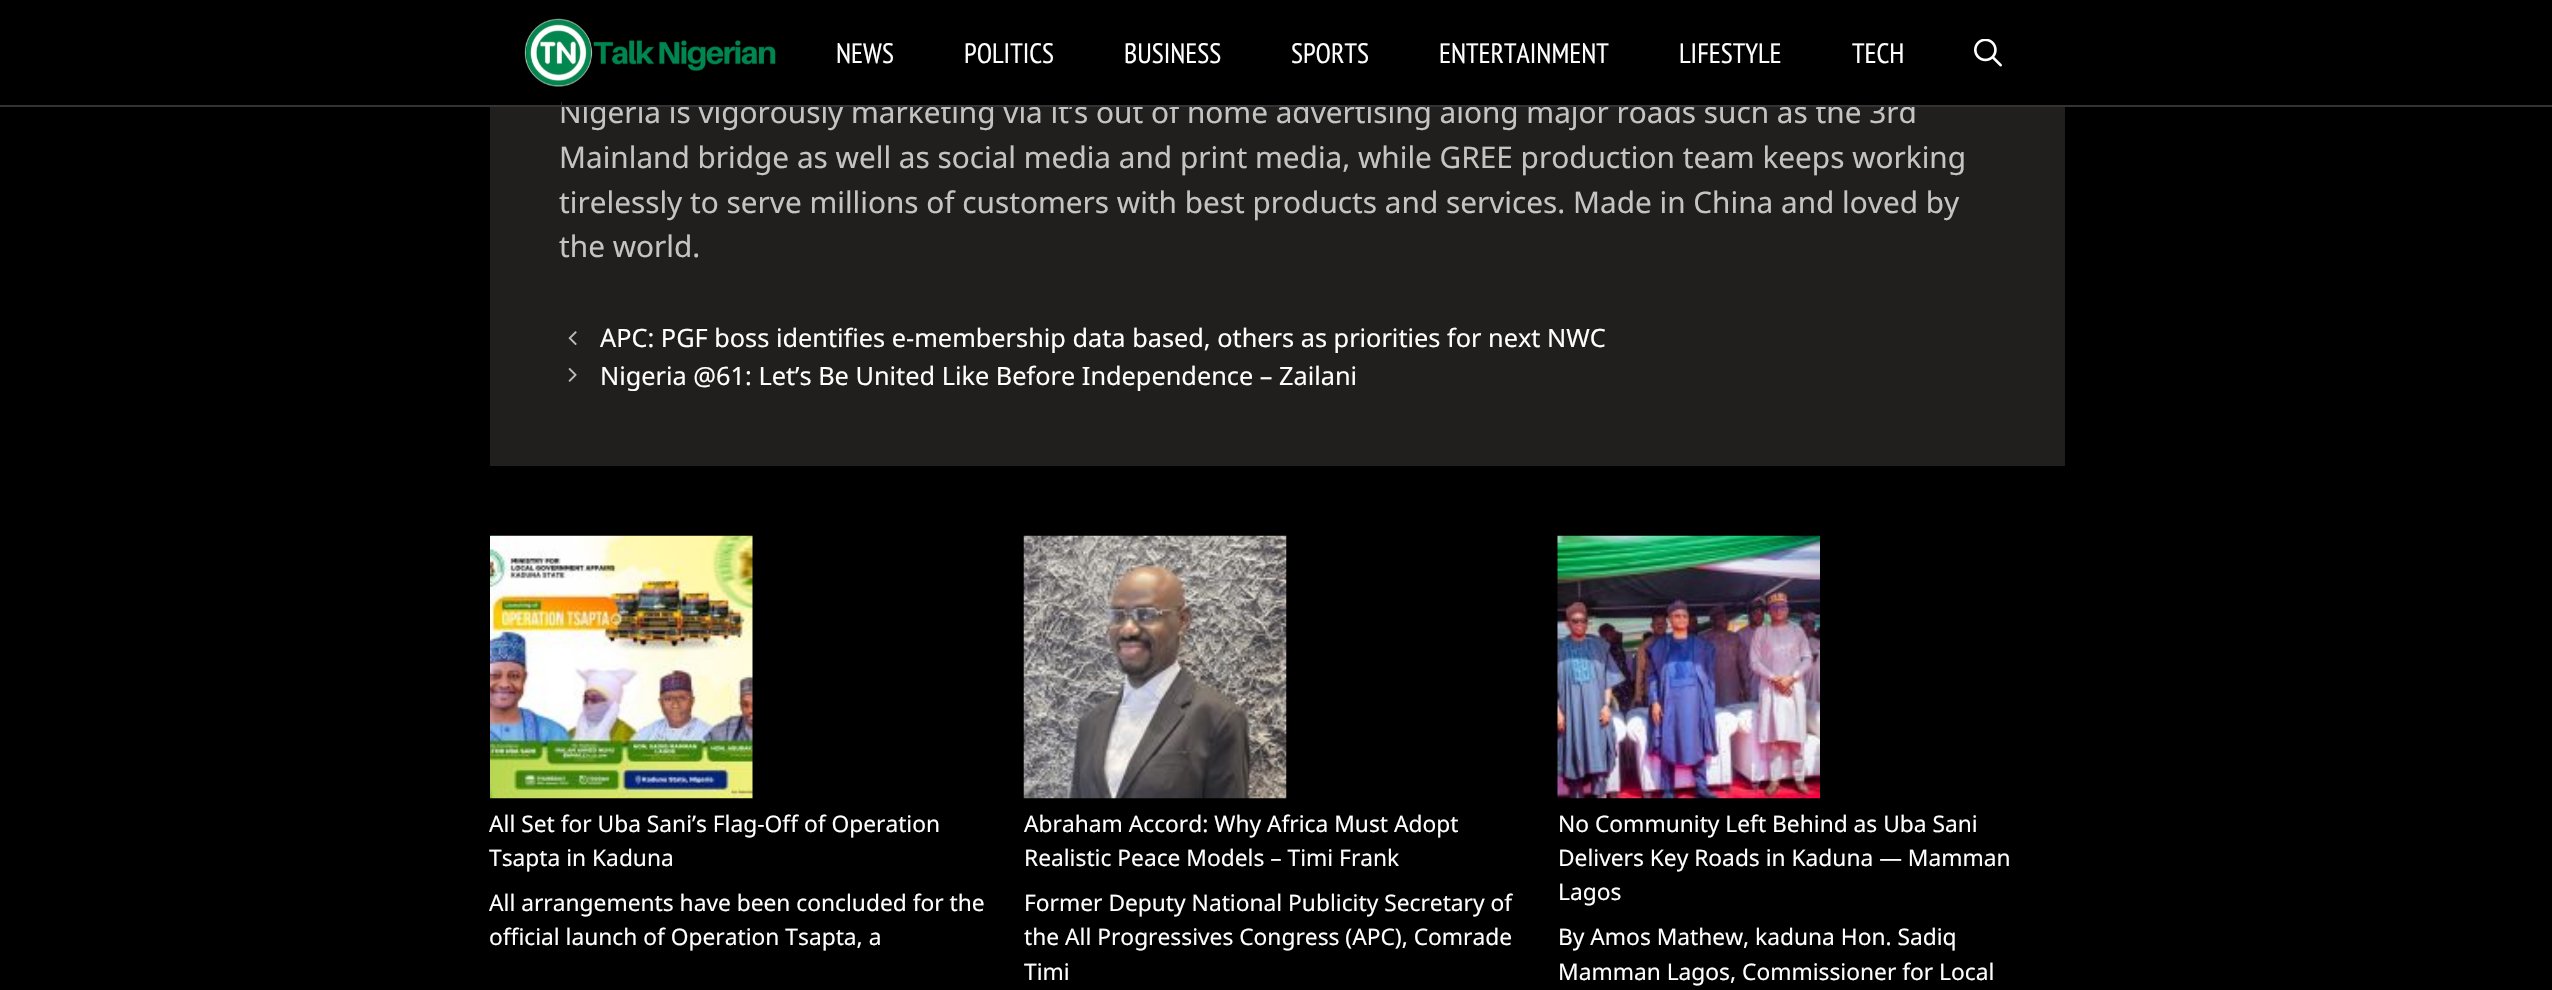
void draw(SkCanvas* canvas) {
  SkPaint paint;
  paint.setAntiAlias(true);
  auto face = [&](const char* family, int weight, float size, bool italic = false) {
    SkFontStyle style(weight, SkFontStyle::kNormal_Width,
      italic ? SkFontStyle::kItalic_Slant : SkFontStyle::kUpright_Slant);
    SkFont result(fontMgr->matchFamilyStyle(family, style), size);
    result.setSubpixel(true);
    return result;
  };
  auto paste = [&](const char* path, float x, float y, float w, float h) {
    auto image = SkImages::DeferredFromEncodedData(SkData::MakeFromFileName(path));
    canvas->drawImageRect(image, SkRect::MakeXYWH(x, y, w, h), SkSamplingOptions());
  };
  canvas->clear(0xff000000);
  paste("img/1.png", 524, 18, 252, 69);
  paste("img/2.png", 1974, 39, 28, 28);
  paint.setColor(0xff201f1d);
  canvas->drawRect(SkRect::MakeXYWH(490, 107, 1575, 359), paint);
  paste("img/3.png", 568, 331, 9, 14);
  paste("img/4.png", 568, 368, 9, 14);
  paste("img/5.png", 490, 535, 263, 264);
  paste("img/6.png", 1023, 535, 264, 264);
  paste("img/7.png", 1557, 535, 263, 264);
  auto f0 = face("PT Sans Narrow", 400, 28);
  paint.setColor(0xffffffff);
  {
    const struct { const char* s; float x, y; } items[] = {
      {"NEWS", 836, 63},
      {"POLITICS", 964, 63},
      {"BUSINESS", 1124, 63},
      {"SPORTS", 1291, 63},
      {"ENTERTAINMENT", 1439, 63},
      {"LIFESTYLE", 1679, 63},
      {"TECH", 1852, 63},
    };
    for (auto [s, x, y] : items) {
      canvas->drawString(s, x, y, f0, paint);
    }
  }
  auto f1 = face("Noto Sans", 400, 29.75f);
  paint.setColor(0xffc4c4c4);
  canvas->drawString("Nigeria is vigorously marketing via it’s out of home advertising along major roads such as the 3rd", 559, 123, f1, paint);
  paint.setColor(0xff000000);
  canvas->drawRect(SkRect::MakeXYWH(562, 100, 1353, 5), paint);
  paint.setColor(0xff333333);
  canvas->drawRect(SkRect::MakeXYWH(0, 105, 2552, 2), paint);
  paint.setColor(0xffc4c4c4);
  {
    const struct { const char* s; float x, y; } items[] = {
      {"Mainland bridge as well as social media and print media, while GREE production team keeps working", 559, 168},
      {"tirelessly to serve millions of customers with best products and services. Made in China and loved by", 559, 213},
      {"the world.", 559, 257},
    };
    for (auto [s, x, y] : items) {
      canvas->drawString(s, x, y, f1, paint);
    }
  }
  auto f2 = face("Noto Sans", 400, 25.3f);
  paint.setColor(0xffffffff);
  canvas->drawString("APC: PGF boss identifies e-membership data based, others as priorities for next NWC", 600, 347, f2, paint);
  canvas->drawString("Nigeria @61: Let’s Be United Like Before Independence – Zailani", 600, 385, f2, paint);
  auto f3 = face("Noto Sans", 400, 22.75f);
  {
    const struct { const char* s; float x, y; } items[] = {
      {"All Set for Uba Sani’s Flag-Off of Operation", 489, 832},
      {"Tsapta in Kaduna", 489, 866},
      {"All arrangements have been concluded for the", 489, 911},
      {"official launch of Operation Tsapta, a", 489, 945},
      {"Abraham Accord: Why Africa Must Adopt", 1024, 832},
      {"Realistic Peace Models – Timi Frank", 1024, 866},
      {"Former Deputy National Publicity Secretary of", 1024, 911},
      {"the All Progressives Congress (APC), Comrade", 1024, 945},
      {"Timi", 1024, 980},
      {"No Community Left Behind as Uba Sani", 1558, 832},
      {"Delivers Key Roads in Kaduna — Mamman", 1558, 866},
      {"Lagos", 1558, 900},
      {"By Amos Mathew, kaduna Hon. Sadiq", 1558, 945},
      {"Mamman Lagos, Commissioner for Local", 1558, 980},
    };
    for (auto [s, x, y] : items) {
      canvas->drawString(s, x, y, f3, paint);
    }
  }
}
